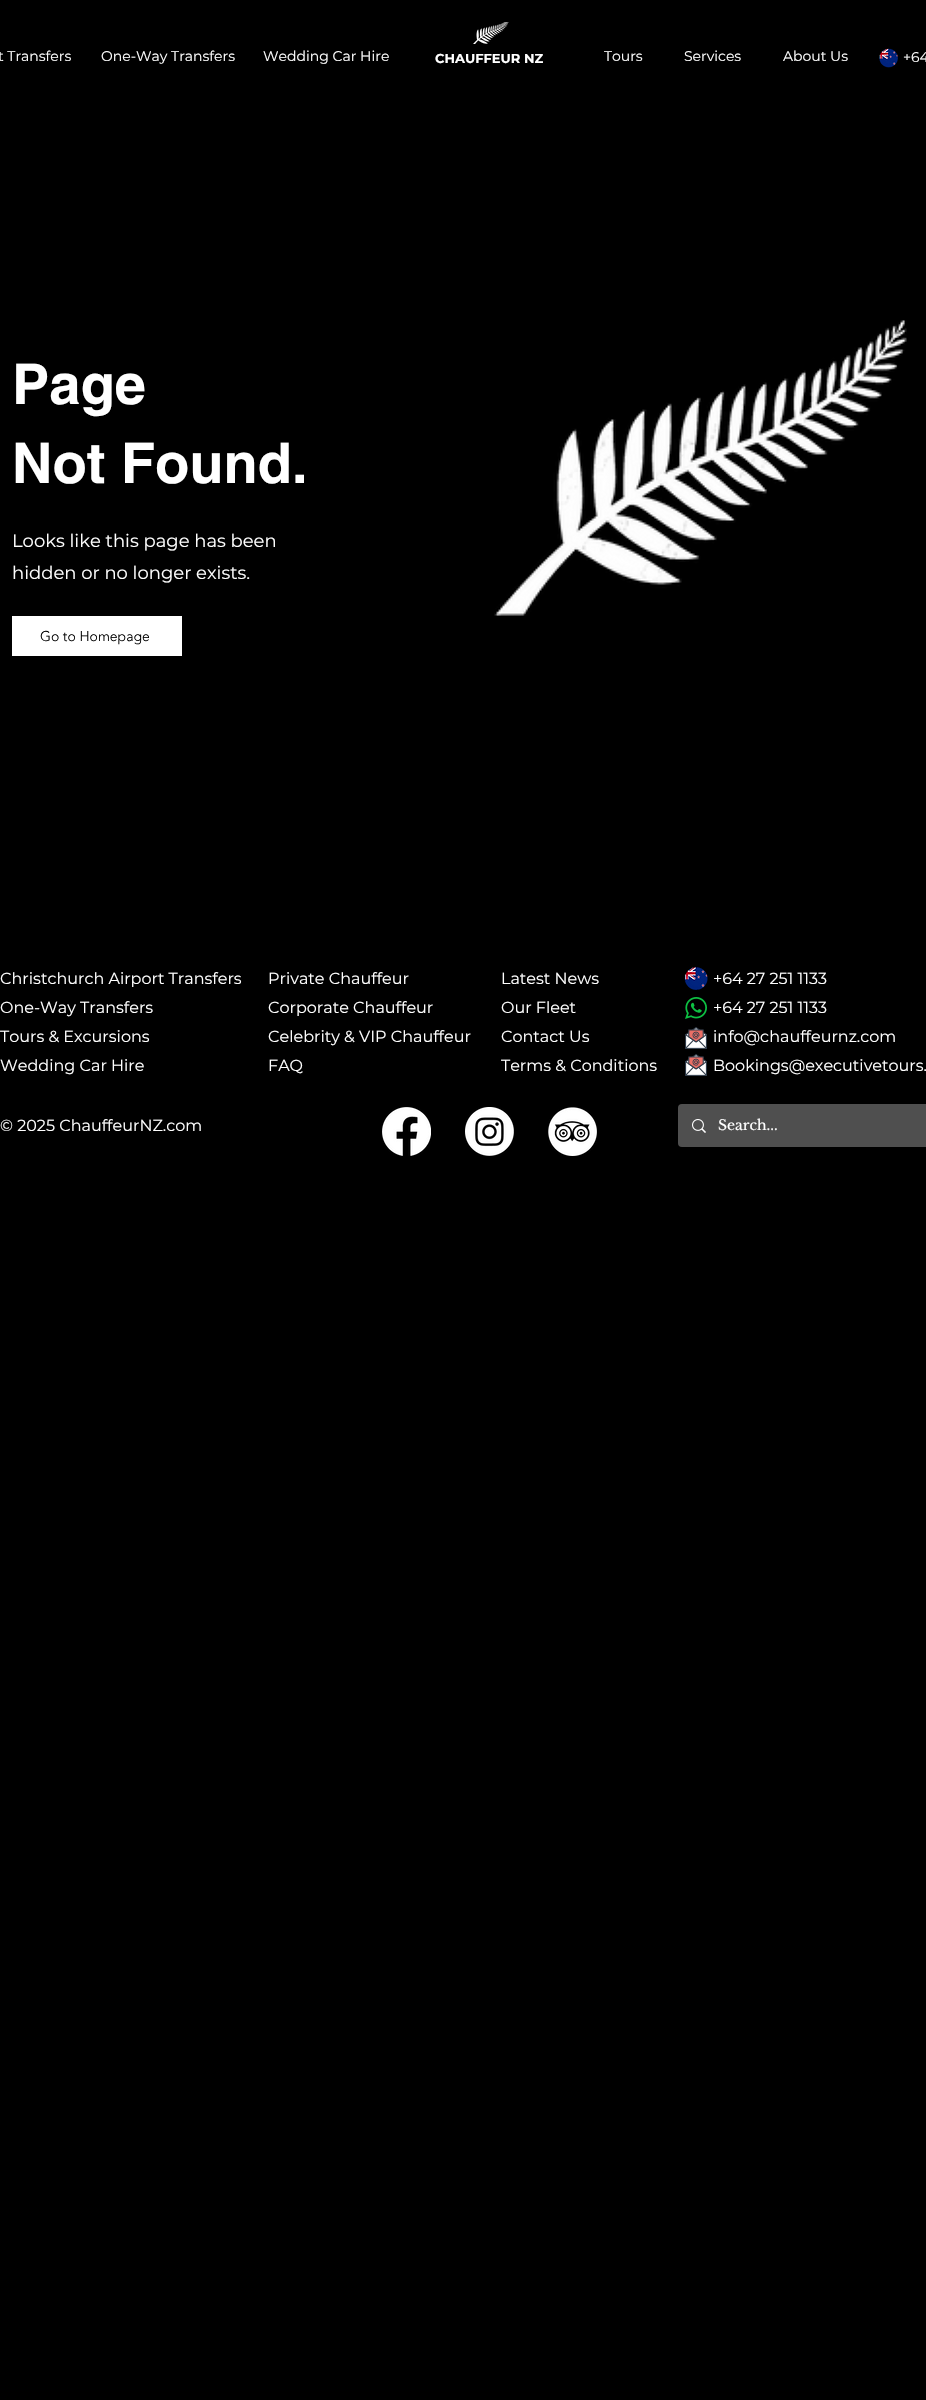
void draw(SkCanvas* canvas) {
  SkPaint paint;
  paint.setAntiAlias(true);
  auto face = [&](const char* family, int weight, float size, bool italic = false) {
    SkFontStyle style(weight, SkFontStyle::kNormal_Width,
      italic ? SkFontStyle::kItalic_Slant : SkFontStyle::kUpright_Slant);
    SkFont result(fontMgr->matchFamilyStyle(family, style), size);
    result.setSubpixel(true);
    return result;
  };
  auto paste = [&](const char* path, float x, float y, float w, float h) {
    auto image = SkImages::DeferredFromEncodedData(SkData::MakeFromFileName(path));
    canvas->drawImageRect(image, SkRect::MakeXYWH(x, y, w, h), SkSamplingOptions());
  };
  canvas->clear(0xff000000);
  paste("img/1.png", 473, 22, 36, 22);
  paste("img/2.png", 879, 48, 19, 20);
  paste("img/3.png", 494, 320, 413, 296);
  paint.setColor(0xffffffff);
  canvas->drawRect(SkRect::MakeXYWH(12, 616, 170, 40), paint);
  paste("img/4.png", 684, 967, 24, 23);
  paste("img/5.png", 685, 997, 22, 22);
  paste("img/6.png", 685, 1027, 22, 22);
  paste("img/6.png", 685, 1054, 22, 22);
  paste("img/7.png", 382, 1107, 49, 49);
  paste("img/8.png", 465, 1107, 49, 49);
  paste("img/9.png", 548, 1107, 49, 49);
  paint.setColor(0xff4f4f4f);
  canvas->drawRoundRect(SkRect::MakeXYWH(678, 1104, 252, 43), 4, 4, paint);
  paste("img/10.png", 692, 1119, 14, 14);
  auto f0 = face("Montserrat", 400, 14);
  paint.setColor(0xffffffff);
  {
    const struct { const char* s; float x, y; } items[] = {
      {"t Transfers", -2, 61},
      {"One-Way Transfers", 101, 61},
      {"Wedding Car Hire", 263, 61},
    };
    for (auto [s, x, y] : items) {
      canvas->drawString(s, x, y, f0, paint);
    }
  }
  auto f1 = face("Montserrat", 700, 13);
  canvas->drawString("CHAUFFEUR NZ", 435, 63, f1, paint);
  {
    const struct { const char* s; float x, y; } items[] = {
      {"Tours", 604, 61},
      {"Services", 684, 61},
      {"About Us", 783, 61},
      {"+64", 903, 62},
    };
    for (auto [s, x, y] : items) {
      canvas->drawString(s, x, y, f0, paint);
    }
  }
  auto f2 = face("helvetica", 700, 56);
  canvas->drawString("Page", 12, 404, f2, paint);
  canvas->drawString("Not Found.", 12, 483, f2, paint);
  auto f3 = face("Montserrat", 400, 18);
  canvas->drawString("Looks like this page has been", 12, 547, f3, paint);
  canvas->drawString("hidden or no longer exists.", 12, 579, f3, paint);
  auto f4 = face("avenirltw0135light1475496", 300, 14);
  paint.setColor(0xff000000);
  canvas->drawString("Go to Homepage", 40, 641, f4, paint);
  auto f5 = face("Montserrat", 400, 16);
  paint.setColor(0xffffffff);
  {
    const struct { const char* s; float x, y; } items[] = {
      {"Christchurch Airport Transfers", 0, 984},
      {"One-Way Transfers", 0, 1013},
      {"Tours & Excursions", 0, 1042},
      {"Wedding Car Hire", 0, 1071},
      {"Private Chauffeur", 268, 984},
      {"Corporate Chauffeur", 268, 1013},
      {"Celebrity & VIP Chauffeur", 268, 1042},
      {"FAQ", 268, 1071},
      {"Latest News", 501, 984},
      {"Our Fleet", 501, 1013},
      {"Contact Us", 501, 1042},
      {"Terms & Conditions", 501, 1071},
      {"+64 27 251 1133", 713, 984},
      {"+64 27 251 1133", 713, 1013},
      {"info@chauffeurnz.com", 713, 1042},
      {"Bookings@executivetours.", 713, 1071},
      {"© 2025 ChauffeurNZ.com", 0, 1131},
    };
    for (auto [s, x, y] : items) {
      canvas->drawString(s, x, y, f5, paint);
    }
  }
  auto f6 = face("Libre Baskerville", 400, 14);
  canvas->drawString("Search...", 718, 1130, f6, paint);
}
